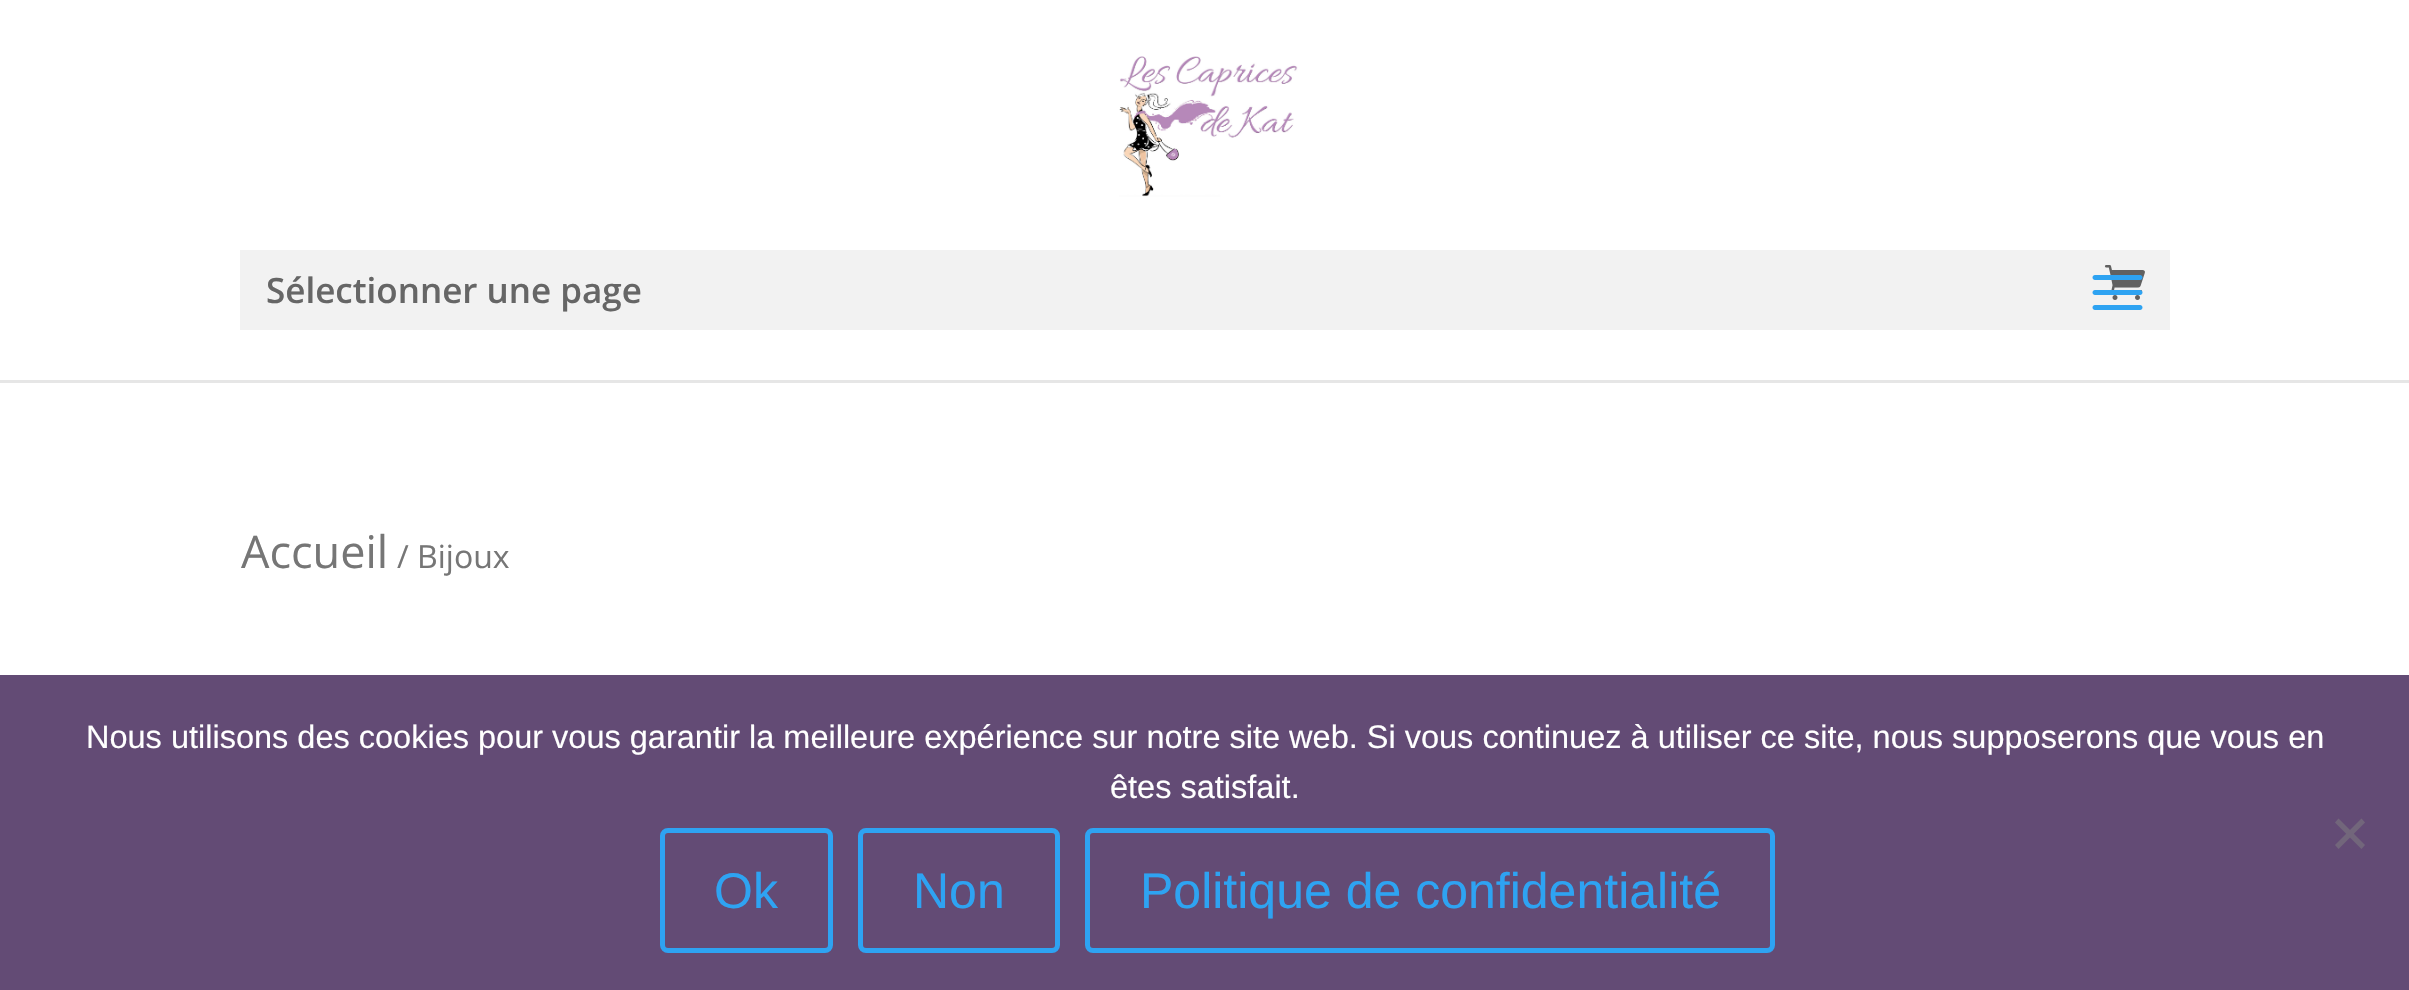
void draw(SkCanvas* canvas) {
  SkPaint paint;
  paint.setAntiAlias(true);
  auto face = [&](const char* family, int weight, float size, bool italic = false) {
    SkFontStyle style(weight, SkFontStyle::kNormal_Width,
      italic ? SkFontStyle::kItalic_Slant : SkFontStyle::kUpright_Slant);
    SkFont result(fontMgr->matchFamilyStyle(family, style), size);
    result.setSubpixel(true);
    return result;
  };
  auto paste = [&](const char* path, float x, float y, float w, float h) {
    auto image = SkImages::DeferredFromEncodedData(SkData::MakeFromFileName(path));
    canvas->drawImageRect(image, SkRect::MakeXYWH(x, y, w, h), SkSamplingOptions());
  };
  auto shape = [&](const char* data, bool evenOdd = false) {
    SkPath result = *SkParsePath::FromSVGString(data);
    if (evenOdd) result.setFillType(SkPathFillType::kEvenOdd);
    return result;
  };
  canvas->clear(0xffffffff);
  paint.setColor(0xffe6e6e6);
  canvas->drawRect(SkRect::MakeXYWH(0, 380, 2409, 3), paint);
  paste("img/1.png", 1119, 56, 179, 141);
  paste("img/3.png", 2104, 265, 41, 35);
  paint.setColor(0x0d000000);
  canvas->drawRect(SkRect::MakeXYWH(240, 250, 1930, 80), paint);
  paste("img/2.png", 2092, 275, 51, 35);
  paint.setColor(0xff634b75);
  canvas->drawRect(SkRect::MakeXYWH(0, 675, 2409, 315), paint);
  paint.setColor(0xff72667b);
  canvas->drawPath(shape("M2361.5 818.5L2365 822.5L2338.5 849L2335 845Z"), paint);
  canvas->drawPath(shape("M2335 822.5L2338.5 818.5L2365 845L2361.5 849Z"), paint);
  paint.setStroke(true);
  paint.setStrokeWidth(5);
  paint.setColor(0xff2ea3f2);
  canvas->drawRoundRect(SkRect::MakeXYWH(662.5f, 830.5f, 168, 120), 5.5f, 5.5f, paint);
  canvas->drawRoundRect(SkRect::MakeXYWH(860.5f, 830.5f, 197, 120), 5.5f, 5.5f, paint);
  canvas->drawRoundRect(SkRect::MakeXYWH(1087.5f, 830.5f, 685, 120), 5.5f, 5.5f, paint);
  auto f0 = face("Open Sans", 600, 35);
  paint.setStroke(false);
  paint.setColor(0xff666666);
  canvas->drawString("Sélectionner une page", 266, 303, f0, paint);
  auto f1 = face("Open Sans", 400, 45);
  paint.setColor(0xff767676);
  canvas->drawString("Accueil", 241, 568, f1, paint);
  auto f2 = face("Open Sans", 400, 32);
  canvas->drawString("/ Bijoux", 397, 568, f2, paint);
  auto f3 = face("Liberation Sans", 400, 32.5f);
  paint.setColor(0xffffffff);
  canvas->drawString("Nous utilisons des cookies pour vous garantir la meilleure expérience sur notre site web. Si vous continuez à utiliser ce site, nous supposerons que vous en", 86, 748, f3, paint);
  canvas->drawString("êtes satisfait.", 1110, 798, f3, paint);
  auto f4 = face("Liberation Sans", 400, 50);
  paint.setColor(0xff2ea3f2);
  {
    const struct { const char* s; float x, y; } items[] = {
      {"Ok", 714, 908},
      {"Non", 913, 908},
      {"Politique de confidentialité", 1140, 908},
    };
    for (auto [s, x, y] : items) {
      canvas->drawString(s, x, y, f4, paint);
    }
  }
}
